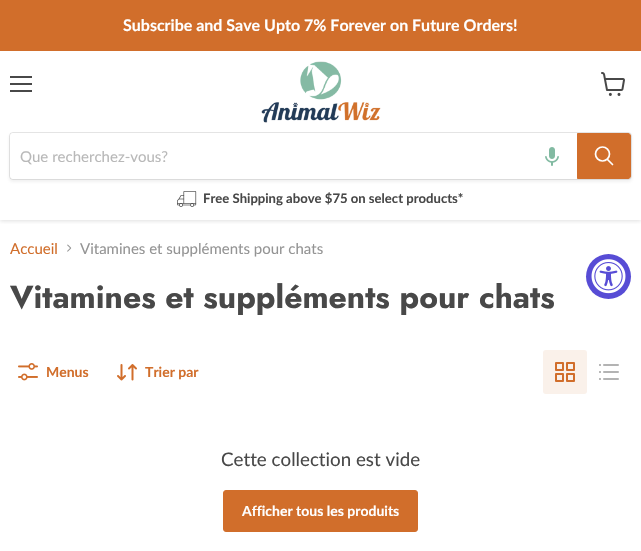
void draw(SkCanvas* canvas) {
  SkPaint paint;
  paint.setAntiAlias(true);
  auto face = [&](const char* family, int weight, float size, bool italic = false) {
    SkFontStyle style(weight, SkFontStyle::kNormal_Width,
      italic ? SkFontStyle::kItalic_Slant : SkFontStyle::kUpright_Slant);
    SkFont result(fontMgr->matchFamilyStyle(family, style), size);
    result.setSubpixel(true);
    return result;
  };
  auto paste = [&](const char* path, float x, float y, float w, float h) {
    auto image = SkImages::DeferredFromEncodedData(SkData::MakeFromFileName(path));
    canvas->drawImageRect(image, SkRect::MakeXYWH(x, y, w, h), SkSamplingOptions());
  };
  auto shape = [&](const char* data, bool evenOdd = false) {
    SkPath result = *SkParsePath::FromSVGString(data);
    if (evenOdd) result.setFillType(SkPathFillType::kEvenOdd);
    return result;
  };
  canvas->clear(0xffffffff);
  canvas->save();
  canvas->clipRect(SkRect::MakeXYWH(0, 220, 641, 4));
  paint.setColor(0x40808080);
  paint.setMaskFilter(SkMaskFilter::MakeBlur(kNormal_SkBlurStyle, 2));
  canvas->drawRect(SkRect::MakeXYWH(0, 52, 641, 169), paint);
  paint.setMaskFilter(nullptr);
  canvas->restore();
  {
    const struct { float x, y, w, h; SkColor color; } items[] = {
      {0, 0, 641, 51, 0xffd16e2b},
      {10, 76, 22, 2, 0xff484848},
      {10, 83, 22, 2, 0xff484848},
      {10, 90, 22, 2, 0xff484848},
    };
    for (auto [x, y, w, h, color] : items) {
      paint.setColor(color);
      canvas->drawRect(SkRect::MakeXYWH(x, y, w, h), paint);
    }
  }
  paste("img/1.png", 601, 72, 24, 24);
  paste("img/2.png", 261, 61, 120, 62);
  paint.setColor(0x1c808080);
  paint.setMaskFilter(SkMaskFilter::MakeBlur(kNormal_SkBlurStyle, 1.5f));
  canvas->drawRoundRect(SkRect::MakeXYWH(9, 134, 623, 48), 4, 4, paint);
  paint.setMaskFilter(nullptr);
  paint.setStroke(true);
  paint.setStrokeWidth(1);
  paint.setColor(0x33808080);
  canvas->drawRoundRect(SkRect::MakeXYWH(9.5f, 132.5f, 622, 47), 3.5f, 3.5f, paint);
  paint.setStroke(false);
  paint.setColor(0xffffffff);
  canvas->drawPath(shape("M13 133H577V179H13C11.5 179 10 177.5 10 176V136C10 134.5 11.5 133 13 133Z"), paint);
  paste("img/3.png", 545, 147, 14, 19);
  paint.setColor(0xffd16e2b);
  canvas->drawPath(shape("M577.5 133.5H628C629.5 133.5 630.5 134.5 630.5 136V176C630.5 177.5 629.5 178.5 628 178.5H577.5Z"), paint);
  paint.setStroke(true);
  canvas->drawPath(shape("M577.5 133.5H628C629.5 133.5 630.5 134.5 630.5 136V176C630.5 177.5 629.5 178.5 628 178.5H577.5Z"), paint);
  paint.setStrokeWidth(1.7f);
  paint.setStrokeCap(SkPaint::kRound_Cap);
  paint.setColor(0xffffffff);
  canvas->drawPath(shape("M612.5 164.5L607.5 159.5"), paint);
  paint.setStrokeCap(SkPaint::kButt_Cap);
  canvas->drawCircle(602.5f, 154, 7, paint);
  paste("img/4.png", 177, 191, 20, 16);
  paste("img/5.png", 67, 244, 5, 8);
  paste("img/6.png", 18, 363, 20, 18);
  paste("img/7.png", 117, 364, 20, 17);
  paint.setStroke(false);
  paint.setColor(0xfffaf1ea);
  canvas->drawRoundRect(SkRect::MakeXYWH(543, 350, 44, 44), 3, 3, paint);
  paste("img/8.png", 555, 362, 20, 20);
  paste("img/9.png", 599, 364, 20, 16);
  paint.setColor(0xffd16e2b);
  canvas->drawRoundRect(SkRect::MakeXYWH(223.5f, 490.5f, 194, 41), 2.5f, 2.5f, paint);
  paint.setStroke(true);
  paint.setStrokeWidth(1);
  canvas->drawRoundRect(SkRect::MakeXYWH(223.5f, 490.5f, 194, 41), 2.5f, 2.5f, paint);
  paint.setStroke(false);
  paint.setColor(0xff574cd5);
  canvas->drawCircle(608.5f, 276.5f, 22.5f, paint);
  paste("img/10.png", 591, 259, 35, 35);
  auto f0 = face("Lato", 700, 16);
  paint.setColor(0xffffffff);
  canvas->drawString("Subscribe and Save Upto 7% Forever on Future Orders!", 123, 31, f0, paint);
  auto f1 = face("Lato", 400, 15);
  paint.setColor(0xffb8b8b8);
  canvas->drawString("Que recherchez-vous?", 20, 162, f1, paint);
  auto f2 = face("Lato", 700, 13.1f);
  paint.setColor(0xff484848);
  canvas->drawString("Free Shipping above $75 on select products*", 203, 203, f2, paint);
  paint.setColor(0xffd16e2b);
  canvas->drawString("Accueil", 10, 254, f1, paint);
  paint.setColor(0xff949494);
  canvas->drawString("Vitamines et suppléments pour chats", 80, 254, f1, paint);
  auto f3 = face("Jost", 700, 31.9f);
  paint.setColor(0xff484848);
  canvas->drawString("Vitamines et suppléments pour chats", 10, 308, f3, paint);
  auto f4 = face("Lato", 700, 14);
  paint.setColor(0xffd16e2b);
  canvas->drawString("Menus", 46, 377, f4, paint);
  canvas->drawString("Trier par", 145, 377, f4, paint);
  auto f5 = face("Lato", 400, 18.75f);
  paint.setColor(0xff484848);
  canvas->drawString("Cette collection est vide", 221, 466, f5, paint);
  paint.setColor(0xffffffff);
  canvas->drawString("Afficher tous les produits", 242, 516, f4, paint);
}
